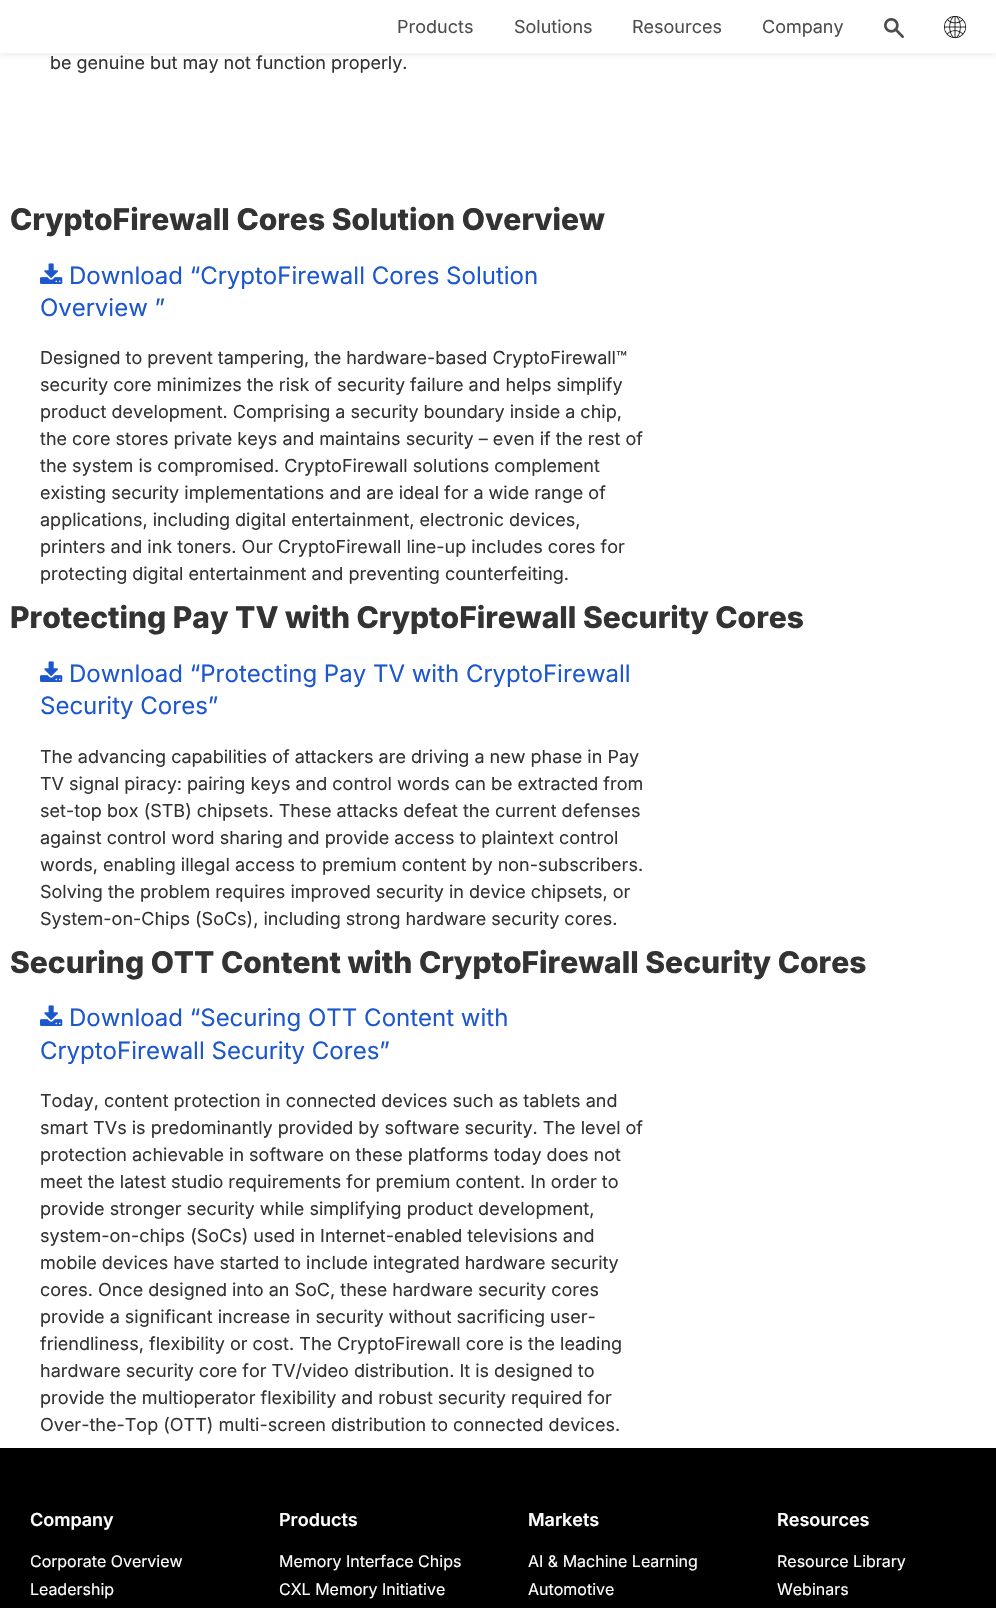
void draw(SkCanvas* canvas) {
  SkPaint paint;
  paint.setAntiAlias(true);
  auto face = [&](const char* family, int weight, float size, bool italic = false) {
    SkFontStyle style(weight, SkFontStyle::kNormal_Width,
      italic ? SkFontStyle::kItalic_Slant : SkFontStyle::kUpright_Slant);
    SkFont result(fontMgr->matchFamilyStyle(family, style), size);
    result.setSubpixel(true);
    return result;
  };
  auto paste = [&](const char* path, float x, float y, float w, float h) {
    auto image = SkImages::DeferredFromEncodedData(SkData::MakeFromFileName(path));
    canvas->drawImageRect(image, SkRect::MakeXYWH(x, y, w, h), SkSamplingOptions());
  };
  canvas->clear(0xffffffff);
  paint.setColor(0x12000000);
  paint.setMaskFilter(SkMaskFilter::MakeBlur(kNormal_SkBlurStyle, 3));
  canvas->drawRect(SkRect::MakeXYWH(0, 2, 996, 53), paint);
  paint.setMaskFilter(nullptr);
  paint.setColor(0xffffffff);
  canvas->drawRect(SkRect::MakeXYWH(0, 0, 996, 53), paint);
  paste("img/1.png", 884, 18, 20, 20);
  paste("img/2.png", 944, 16, 22, 22);
  paste("img/3.png", 40, 263, 23, 21);
  paste("img/3.png", 40, 661, 23, 21);
  paste("img/3.png", 40, 1005, 23, 21);
  paint.setColor(0xff000000);
  canvas->drawRect(SkRect::MakeXYWH(0, 1448, 996, 160), paint);
  auto f0 = face("Inter", 400, 18);
  paint.setColor(0xff4d4d4d);
  {
    const struct { const char* s; float x, y; } items[] = {
      {"Products", 397, 33},
      {"Solutions", 514, 33},
      {"Resources", 632, 33},
      {"Company", 762, 33},
    };
    for (auto [s, x, y] : items) {
      canvas->drawString(s, x, y, f0, paint);
    }
  }
  paint.setColor(0xff333333);
  canvas->drawString("be genuine but may not function properly.", 50, 69, f0, paint);
  auto f1 = face("Inter", 800, 30);
  canvas->drawString("CryptoFirewall Cores Solution Overview", 10, 230, f1, paint);
  auto f2 = face("Inter", 400, 24);
  paint.setColor(0xff1d57cc);
  canvas->drawString("Download “CryptoFirewall Cores Solution", 69, 284, f2, paint);
  canvas->drawString("Overview ”", 40, 316, f2, paint);
  paint.setColor(0xff333333);
  {
    const struct { const char* s; float x, y; } items[] = {
      {"Designed to prevent tampering, the hardware-based CryptoFirewall™", 40, 364},
      {"security core minimizes the risk of security failure and helps simplify", 40, 391},
      {"product development. Comprising a security boundary inside a chip,", 40, 418},
      {"the core stores private keys and maintains security – even if the rest of", 40, 445},
      {"the system is compromised. CryptoFirewall solutions complement", 40, 472},
      {"existing security implementations and are ideal for a wide range of", 40, 499},
      {"applications, including digital entertainment, electronic devices,", 40, 526},
      {"printers and ink toners. Our CryptoFirewall line-up includes cores for", 40, 553},
      {"protecting digital entertainment and preventing counterfeiting.", 40, 580},
    };
    for (auto [s, x, y] : items) {
      canvas->drawString(s, x, y, f0, paint);
    }
  }
  canvas->drawString("Protecting Pay TV with CryptoFirewall Security Cores", 10, 628, f1, paint);
  paint.setColor(0xff1d57cc);
  canvas->drawString("Download “Protecting Pay TV with CryptoFirewall", 69, 682, f2, paint);
  canvas->drawString("Security Cores”", 40, 714, f2, paint);
  paint.setColor(0xff333333);
  {
    const struct { const char* s; float x, y; } items[] = {
      {"The advancing capabilities of attackers are driving a new phase in Pay", 40, 763},
      {"TV signal piracy: pairing keys and control words can be extracted from", 40, 790},
      {"set-top box (STB) chipsets. These attacks defeat the current defenses", 40, 817},
      {"against control word sharing and provide access to plaintext control", 40, 844},
      {"words, enabling illegal access to premium content by non-subscribers.", 40, 871},
      {"Solving the problem requires improved security in device chipsets, or", 40, 898},
      {"System-on-Chips (SoCs), including strong hardware security cores.", 40, 925},
    };
    for (auto [s, x, y] : items) {
      canvas->drawString(s, x, y, f0, paint);
    }
  }
  canvas->drawString("Securing OTT Content with CryptoFirewall Security Cores", 10, 973, f1, paint);
  paint.setColor(0xff1d57cc);
  canvas->drawString("Download “Securing OTT Content with", 69, 1026, f2, paint);
  canvas->drawString("CryptoFirewall Security Cores”", 40, 1059, f2, paint);
  paint.setColor(0xff333333);
  {
    const struct { const char* s; float x, y; } items[] = {
      {"Today, content protection in connected devices such as tablets and", 40, 1107},
      {"smart TVs is predominantly provided by software security. The level of", 40, 1134},
      {"protection achievable in software on these platforms today does not", 40, 1161},
      {"meet the latest studio requirements for premium content. In order to", 40, 1188},
      {"provide stronger security while simplifying product development,", 40, 1215},
      {"system-on-chips (SoCs) used in Internet-enabled televisions and", 40, 1242},
      {"mobile devices have started to include integrated hardware security", 40, 1269},
      {"cores. Once designed into an SoC, these hardware security cores", 40, 1296},
      {"provide a significant increase in security without sacrificing user-", 40, 1323},
      {"friendliness, flexibility or cost. The CryptoFirewall core is the leading", 40, 1350},
      {"hardware security core for TV/video distribution. It is designed to", 40, 1377},
      {"provide the multioperator flexibility and robust security required for", 40, 1404},
      {"Over-the-Top (OTT) multi-screen distribution to connected devices.", 40, 1431},
    };
    for (auto [s, x, y] : items) {
      canvas->drawString(s, x, y, f0, paint);
    }
  }
  auto f3 = face("Inter", 600, 18);
  paint.setColor(0xffffffff);
  canvas->drawString("Company", 30, 1526, f3, paint);
  auto f4 = face("Inter", 400, 16);
  canvas->drawString("Corporate Overview", 30, 1567, f4, paint);
  canvas->drawString("Leadership", 30, 1595, f4, paint);
  canvas->drawString("Products", 279, 1526, f3, paint);
  canvas->drawString("Memory Interface Chips", 279, 1567, f4, paint);
  canvas->drawString("CXL Memory Initiative", 279, 1595, f4, paint);
  canvas->drawString("Markets", 528, 1526, f3, paint);
  canvas->drawString("AI & Machine Learning", 528, 1567, f4, paint);
  canvas->drawString("Automotive", 528, 1595, f4, paint);
  canvas->drawString("Resources", 777, 1526, f3, paint);
  canvas->drawString("Resource Library", 777, 1567, f4, paint);
  canvas->drawString("Webinars", 777, 1595, f4, paint);
}
